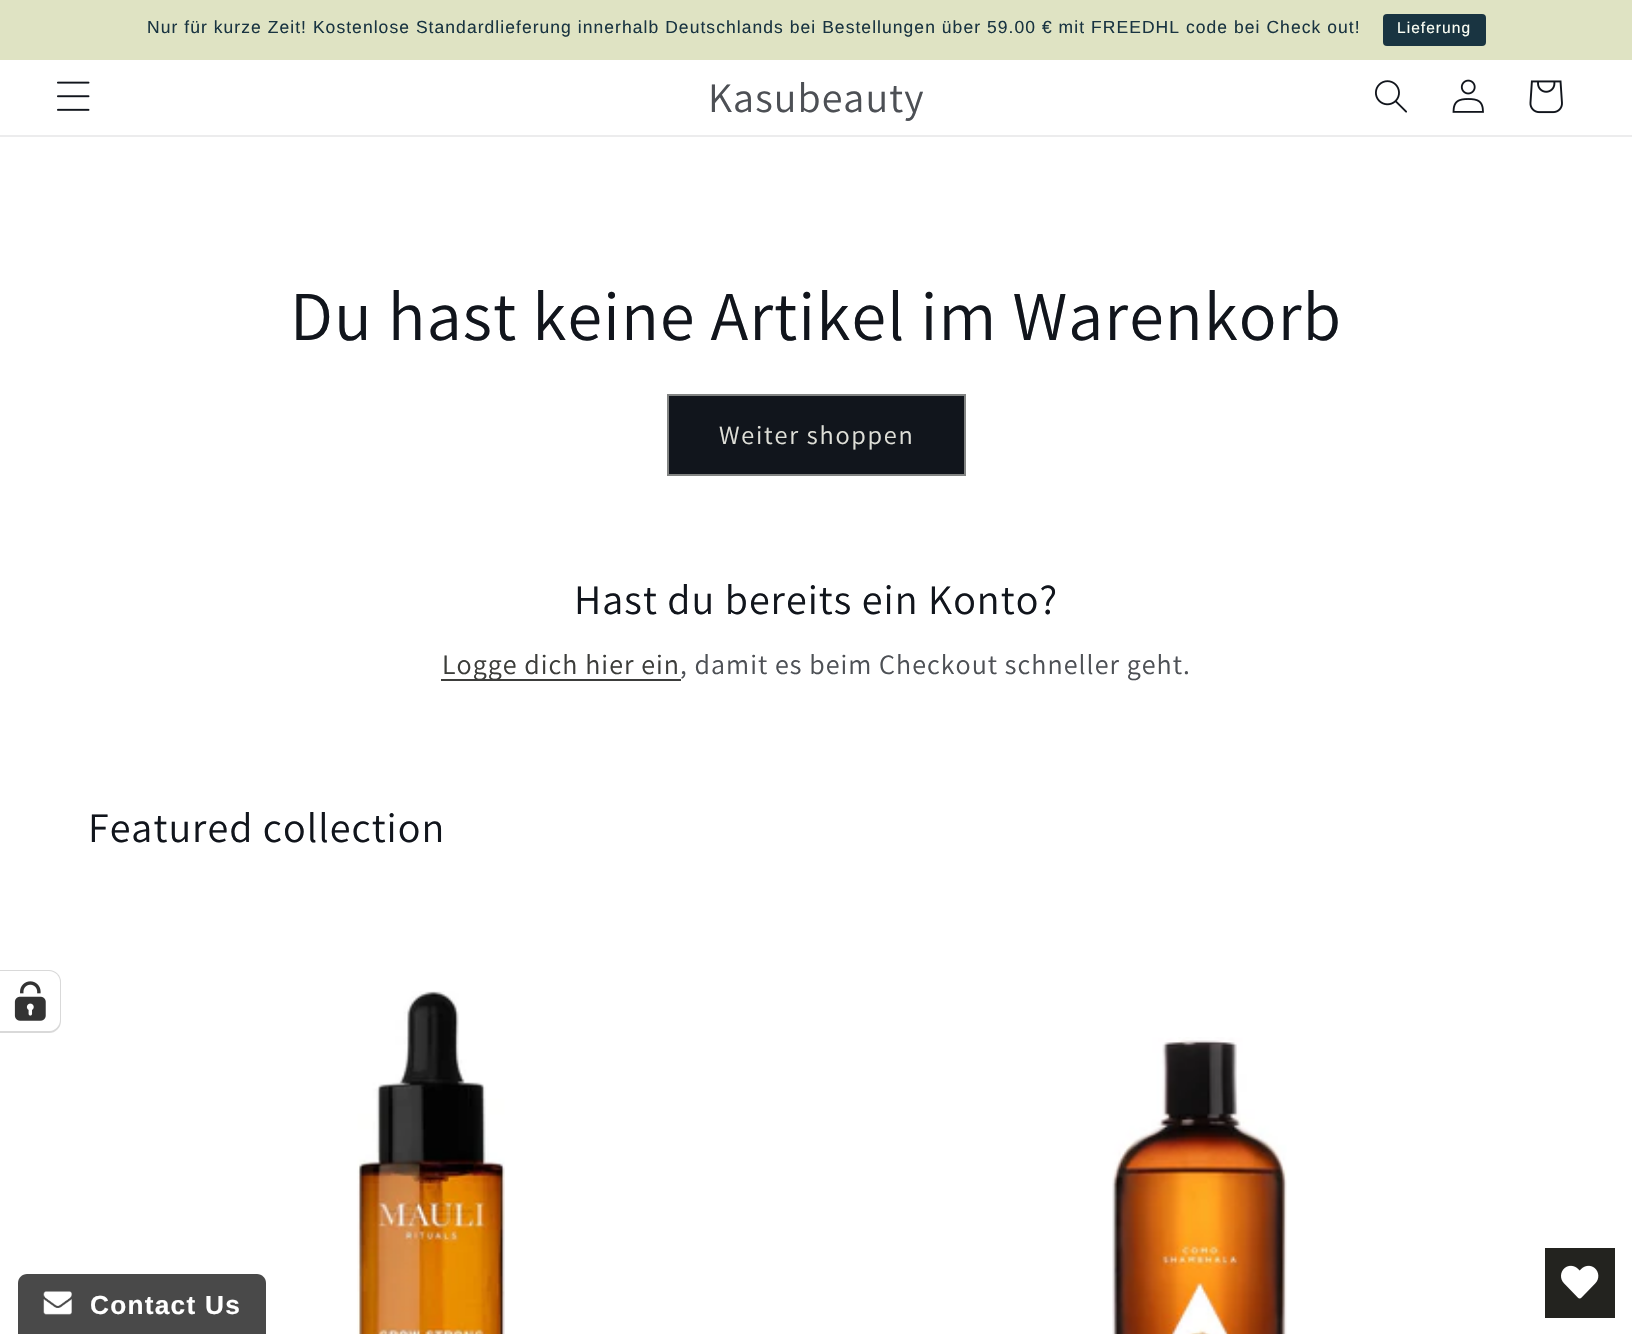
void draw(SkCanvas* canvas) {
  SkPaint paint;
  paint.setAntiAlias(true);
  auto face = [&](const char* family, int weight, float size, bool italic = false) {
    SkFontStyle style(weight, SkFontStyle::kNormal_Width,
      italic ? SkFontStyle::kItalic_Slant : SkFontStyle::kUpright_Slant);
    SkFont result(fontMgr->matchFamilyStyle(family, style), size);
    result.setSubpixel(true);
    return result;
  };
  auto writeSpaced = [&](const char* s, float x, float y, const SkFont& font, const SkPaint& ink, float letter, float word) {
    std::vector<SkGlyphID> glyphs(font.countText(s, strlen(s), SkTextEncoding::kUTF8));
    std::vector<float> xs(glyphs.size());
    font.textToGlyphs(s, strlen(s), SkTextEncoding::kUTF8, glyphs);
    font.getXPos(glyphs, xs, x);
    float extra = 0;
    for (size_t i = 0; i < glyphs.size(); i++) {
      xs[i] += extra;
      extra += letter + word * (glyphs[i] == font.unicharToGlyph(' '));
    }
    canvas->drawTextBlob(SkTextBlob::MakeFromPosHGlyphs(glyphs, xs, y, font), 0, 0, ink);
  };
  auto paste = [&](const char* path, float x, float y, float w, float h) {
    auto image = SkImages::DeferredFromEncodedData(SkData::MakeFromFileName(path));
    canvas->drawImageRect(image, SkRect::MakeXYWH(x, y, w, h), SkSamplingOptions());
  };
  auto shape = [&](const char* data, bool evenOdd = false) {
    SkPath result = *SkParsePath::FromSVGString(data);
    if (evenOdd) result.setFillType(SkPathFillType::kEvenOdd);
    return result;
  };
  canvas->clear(0xffffffff);
  paint.setColor(0xffdfe3c3);
  canvas->drawRect(SkRect::MakeXYWH(0, 0, 1632, 60), paint);
  paint.setColor(0xff193441);
  canvas->drawRoundRect(SkRect::MakeXYWH(1383, 14, 103, 32), 4, 4, paint);
  paint.setColor(0xffececed);
  canvas->drawRect(SkRect::MakeXYWH(0, 135, 1632, 2), paint);
  paste("img/1.png", 57, 81, 33, 30);
  paste("img/2.png", 1375, 80, 32, 33);
  paste("img/3.png", 1452, 79, 32, 34);
  paste("img/4.png", 1529, 80, 34, 34);
  paint.setColor(0xff11151c);
  canvas->drawRect(SkRect::MakeXYWH(669, 396, 295, 78), paint);
  paint.setStroke(true);
  paint.setStrokeWidth(2);
  paint.setColor(0xff828483);
  canvas->drawRect(SkRect::MakeXYWH(668, 395, 297, 80), paint);
  paint.setStroke(false);
  paint.setColor(0xff3c3d3b);
  canvas->drawRect(SkRect::MakeXYWH(441, 679, 240, 2), paint);
  paste("img/5.png", 357, 991, 148, 343);
  paste("img/6.png", 1112, 1037, 175, 297);
  paint.setStroke(true);
  paint.setColor(0xffd9d9d9);
  canvas->drawPath(shape("M-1 971H49C55 971 60 976 60 982V1021C60 1027 55 1032 49 1032H-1Z"), paint);
  paint.setStroke(false);
  paint.setColor(0xffffffff);
  canvas->drawPath(shape("M0 971H49C55 971 60 976 60 982V1020C60 1026 55 1031 49 1031H0Z"), paint);
  paste("img/7.png", 14, 981, 32, 40);
  paint.setColor(0xff494949);
  canvas->drawPath(shape("M27 1274H257C262 1274 266 1278 266 1283V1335H18V1283C18 1278 22 1274 27 1274Z"), paint);
  paste("img/8.png", 43, 1291, 29, 24);
  paint.setColor(0xff23231f);
  canvas->drawRect(SkRect::MakeXYWH(1545, 1248, 70, 70), paint);
  paste("img/9.png", 1561, 1265, 38, 34);
  auto f0 = face("Liberation Sans", 400, 17.5f);
  paint.setColor(0xff193441);
  writeSpaced("Nur für kurze Zeit! Kostenlose Standardlieferung innerhalb Deutschlands bei Bestellungen über 59.00 € mit FREEDHL code bei Check out!", 147, 33, f0, paint, 1.05f, 0);
  auto f1 = face("Liberation Sans", 400, 15.5f);
  paint.setColor(0xfffcfff5);
  writeSpaced("Lieferung", 1397, 33, f1, paint, 1.05f, 0);
  auto f2 = face("Assistant", 400, 42);
  paint.setColor(0xff4d5055);
  writeSpaced("Kasubeauty", 708, 112, f2, paint, 1.05f, 0);
  auto f3 = face("Assistant", 400, 70);
  paint.setColor(0xff11151c);
  writeSpaced("Du hast keine Artikel im Warenkorb", 290, 340, f3, paint, 1.05f, 0);
  auto f4 = face("Assistant", 400, 26.25f);
  paint.setColor(0xffdfdfd8);
  writeSpaced("Weiter shoppen", 719, 444, f4, paint, 1.75f, 0);
  paint.setColor(0xff11151c);
  writeSpaced("Hast du bereits ein Konto?", 574, 614, f2, paint, 1.05f, 0);
  auto f5 = face("Assistant", 400, 28);
  paint.setColor(0xff3c3d3a);
  writeSpaced("Logge dich hier ein", 442, 674, f5, paint, 1.05f, 0);
  paint.setColor(0xff4d5055);
  writeSpaced(", damit es beim Checkout schneller geht.", 680, 674, f5, paint, 1.05f, 0);
  paint.setColor(0xff11151c);
  writeSpaced("Featured collection", 88, 842, f2, paint, 1.05f, 0);
  auto f6 = face("Liberation Sans", 700, 26.25f);
  paint.setColor(0xffffffff);
  writeSpaced("Contact Us", 90, 1314, f6, paint, 1.25f, 0);
}
